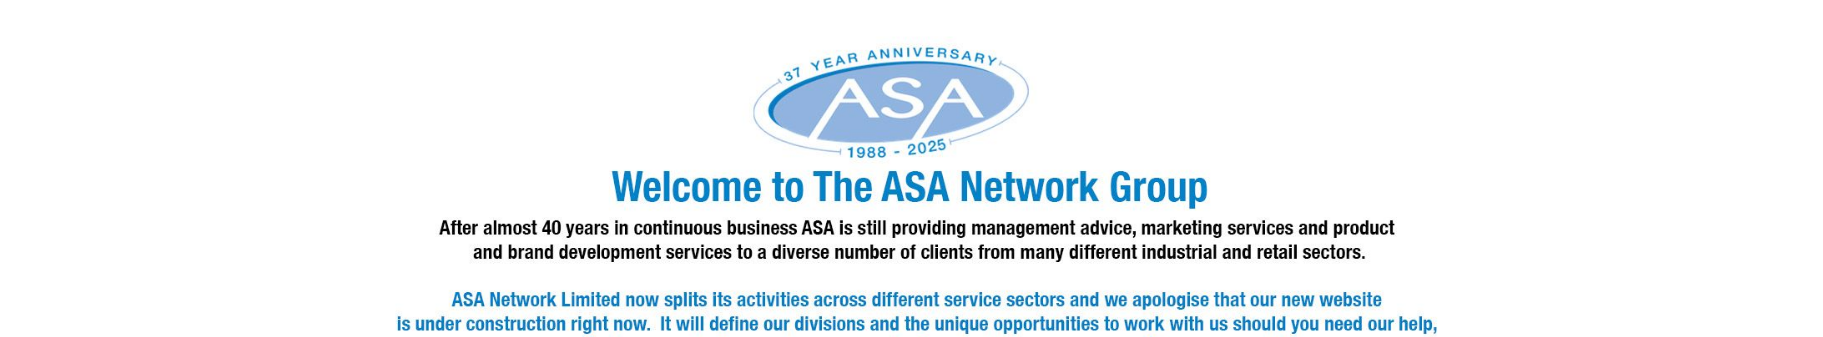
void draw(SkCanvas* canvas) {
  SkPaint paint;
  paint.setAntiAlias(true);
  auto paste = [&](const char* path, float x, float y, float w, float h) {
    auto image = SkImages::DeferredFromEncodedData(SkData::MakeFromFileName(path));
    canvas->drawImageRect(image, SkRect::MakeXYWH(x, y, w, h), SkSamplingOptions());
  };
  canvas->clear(0xffffffff);
  paste("img/1.png", 395, 36, 1043, 301);
}
